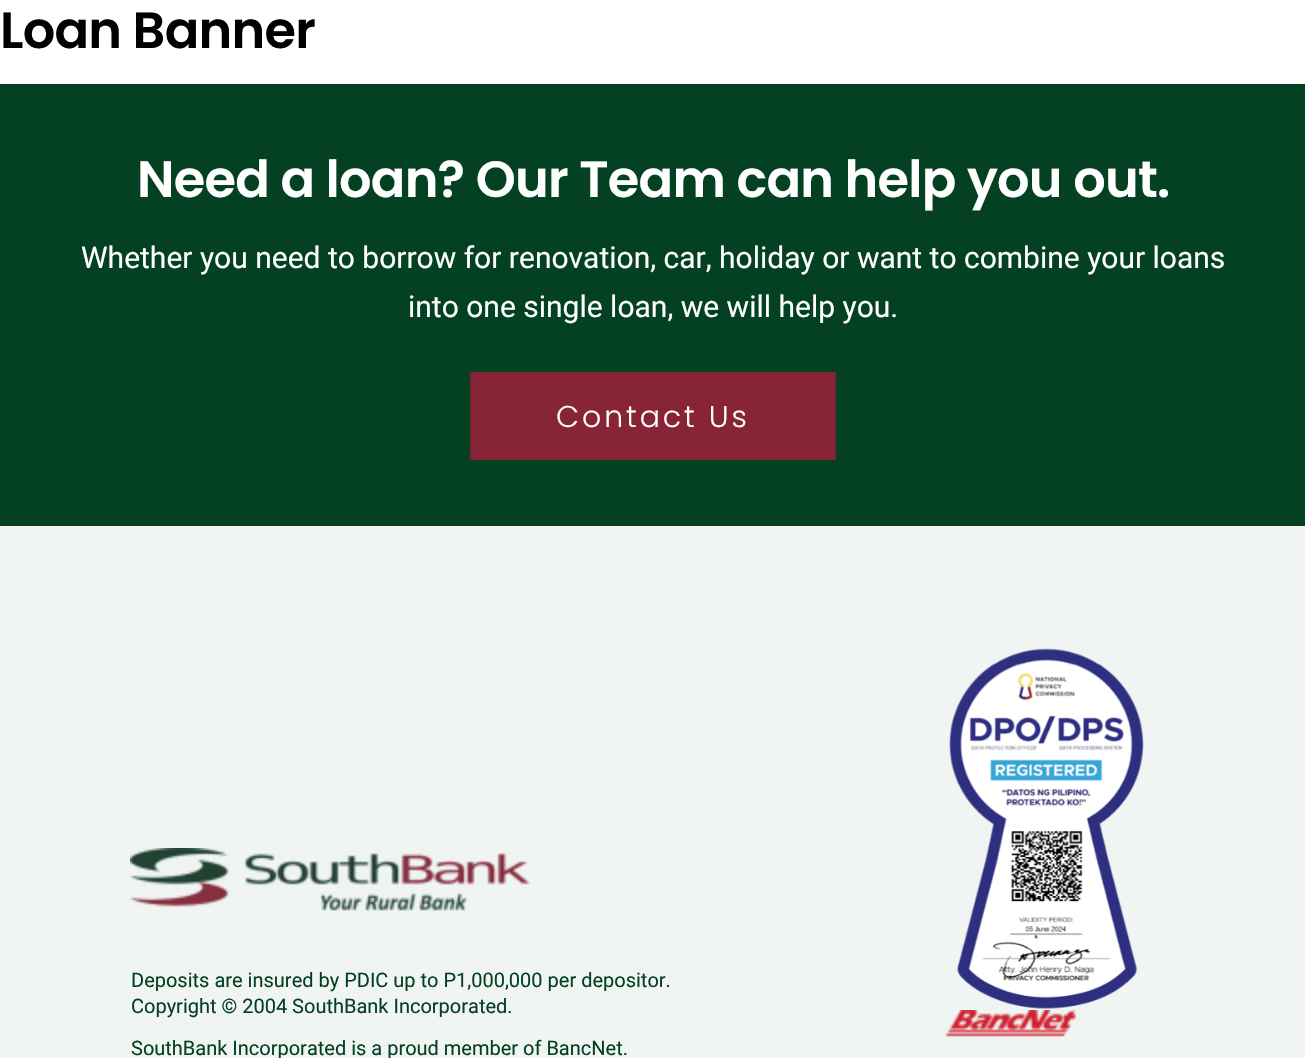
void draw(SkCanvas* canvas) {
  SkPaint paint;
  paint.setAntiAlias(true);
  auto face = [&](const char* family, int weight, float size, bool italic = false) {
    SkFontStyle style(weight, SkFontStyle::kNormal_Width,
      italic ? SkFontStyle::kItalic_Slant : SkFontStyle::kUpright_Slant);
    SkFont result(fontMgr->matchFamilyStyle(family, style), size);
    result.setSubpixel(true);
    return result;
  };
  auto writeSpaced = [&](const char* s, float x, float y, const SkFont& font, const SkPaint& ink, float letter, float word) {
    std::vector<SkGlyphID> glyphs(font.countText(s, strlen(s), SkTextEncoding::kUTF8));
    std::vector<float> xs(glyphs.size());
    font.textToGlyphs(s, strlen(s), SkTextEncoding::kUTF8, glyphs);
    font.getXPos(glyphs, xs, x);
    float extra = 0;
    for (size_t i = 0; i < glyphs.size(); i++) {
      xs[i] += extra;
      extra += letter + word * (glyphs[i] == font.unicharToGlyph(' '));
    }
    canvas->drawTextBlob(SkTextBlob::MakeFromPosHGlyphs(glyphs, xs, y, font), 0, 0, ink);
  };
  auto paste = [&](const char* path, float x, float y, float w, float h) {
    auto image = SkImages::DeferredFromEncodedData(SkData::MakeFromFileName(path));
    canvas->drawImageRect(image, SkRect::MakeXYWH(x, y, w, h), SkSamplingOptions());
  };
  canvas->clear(0xffffffff);
  paint.setColor(0xff044122);
  canvas->drawRect(SkRect::MakeXYWH(0, 84, 1305, 442), paint);
  paint.setColor(0xff872436);
  canvas->drawRect(SkRect::MakeXYWH(471, 373, 364, 86), paint);
  paint.setStroke(true);
  paint.setStrokeWidth(2);
  paint.setColor(0xff802233);
  canvas->drawRect(SkRect::MakeXYWH(471, 373, 364, 86), paint);
  paint.setStroke(false);
  paint.setColor(0xfff0f5f3);
  canvas->drawRect(SkRect::MakeXYWH(0, 526, 1305, 532), paint);
  paste("img/1.png", 130, 848, 401, 63);
  paste("img/2.png", 949, 648, 195, 361);
  paste("img/3.png", 945, 1010, 131, 27);
  auto f0 = face("Poppins", 600, 51);
  paint.setColor(0xff000000);
  writeSpaced("Loan Banner", 0, 48, f0, paint, -0.75f, 0);
  paint.setColor(0xffffffff);
  writeSpaced("Need a loan? Our Team can help you out.", 137, 197, f0, paint, -0.75f, 0);
  auto f1 = face("Roboto", 400, 30);
  canvas->drawString("Whether you need to borrow for renovation, car, holiday or want to combine your loans", 81, 268, f1, paint);
  canvas->drawString("into one single loan, we will help you.", 408, 317, f1, paint);
  auto f2 = face("Poppins", 300, 30);
  writeSpaced("Contact Us", 556, 427, f2, paint, 2.9f, 0);
  auto f3 = face("Roboto", 400, 20);
  paint.setColor(0xff044122);
  {
    const struct { const char* s; float x, y; } items[] = {
      {"Deposits are insured by PDIC up to P1,000,000 per depositor.", 131, 987},
      {"Copyright © 2004 SouthBank Incorporated.", 131, 1013},
      {"SouthBank Incorporated is a proud member of BancNet.", 131, 1055},
    };
    for (auto [s, x, y] : items) {
      canvas->drawString(s, x, y, f3, paint);
    }
  }
}
